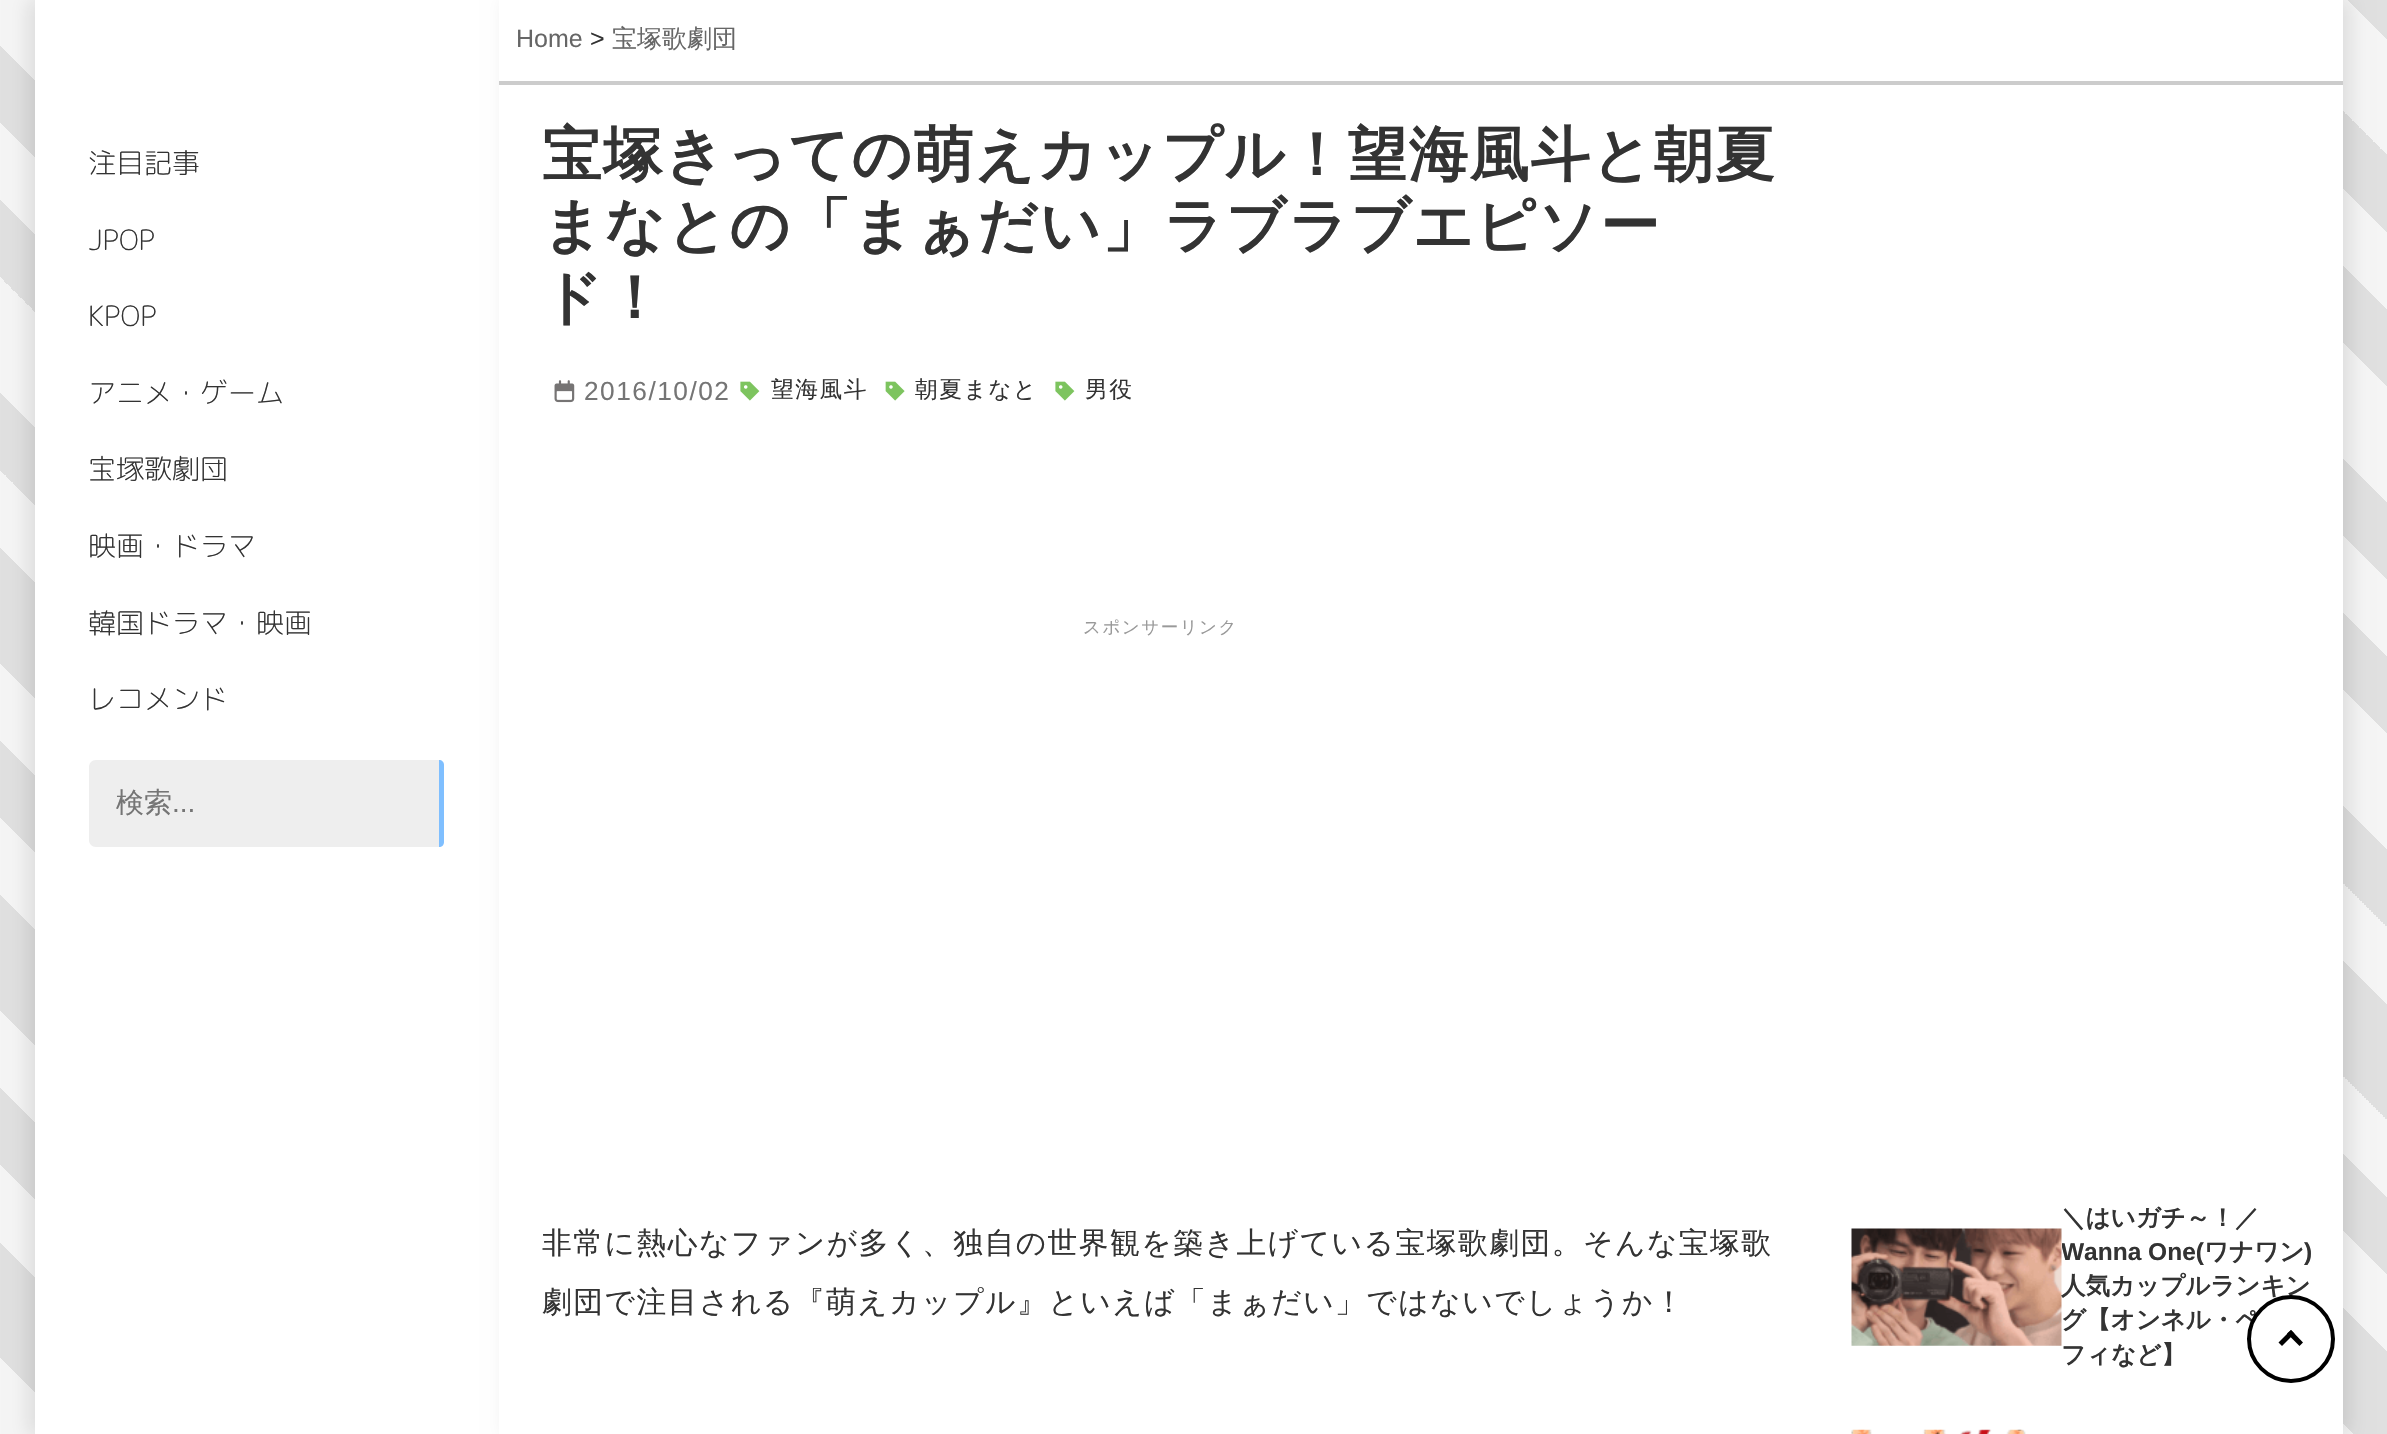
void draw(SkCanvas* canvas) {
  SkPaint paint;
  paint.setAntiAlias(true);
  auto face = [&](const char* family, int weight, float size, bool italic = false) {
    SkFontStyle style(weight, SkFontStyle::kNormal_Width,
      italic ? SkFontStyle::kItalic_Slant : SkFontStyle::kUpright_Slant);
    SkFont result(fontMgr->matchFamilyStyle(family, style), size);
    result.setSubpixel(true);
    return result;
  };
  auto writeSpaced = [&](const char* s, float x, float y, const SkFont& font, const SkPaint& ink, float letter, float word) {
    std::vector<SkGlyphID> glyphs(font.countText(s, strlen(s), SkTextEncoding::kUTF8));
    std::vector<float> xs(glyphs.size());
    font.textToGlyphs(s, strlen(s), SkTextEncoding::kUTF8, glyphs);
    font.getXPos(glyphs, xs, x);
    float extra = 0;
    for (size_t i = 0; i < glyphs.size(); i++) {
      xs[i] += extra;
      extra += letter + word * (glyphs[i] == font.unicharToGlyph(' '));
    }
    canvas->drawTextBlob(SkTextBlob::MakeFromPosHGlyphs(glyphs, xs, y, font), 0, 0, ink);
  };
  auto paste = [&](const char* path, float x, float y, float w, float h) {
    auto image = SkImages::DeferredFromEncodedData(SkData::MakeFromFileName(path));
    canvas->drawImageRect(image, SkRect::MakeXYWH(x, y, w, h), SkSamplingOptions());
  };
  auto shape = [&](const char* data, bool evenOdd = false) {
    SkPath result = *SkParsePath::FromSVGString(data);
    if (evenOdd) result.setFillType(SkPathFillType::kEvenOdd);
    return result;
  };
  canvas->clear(0xffffffff);
  {
    const SkColor colors[] = {0xfff5f5f5, 0xfff5f5f5, 0xffe0e0e0, 0xffe0e0e0, 0xfff5f5f5, 0xfff5f5f5, 0xffe0e0e0, 0xffe0e0e0, 0xfff5f5f5, 0xfff5f5f5, 0xffe0e0e0, 0xffe0e0e0, 0xfff5f5f5, 0xfff5f5f5, 0xffe0e0e0, 0xffe0e0e0, 0xfff5f5f5, 0xfff5f5f5, 0xffe0e0e0, 0xffe0e0e0, 0xfff5f5f5, 0xfff5f5f5, 0xffe0e0e0, 0xffe0e0e0, 0xfff5f5f5, 0xfff5f5f5, 0xffe0e0e0, 0xffe0e0e0, 0xfff5f5f5, 0xfff5f5f5, 0xffe0e0e0, 0xffe0e0e0, 0xfff5f5f5, 0xfff5f5f5, 0xffe0e0e0, 0xffe0e0e0, 0xfff5f5f5, 0xfff5f5f5, 0xffe0e0e0, 0xffe0e0e0, 0xfff5f5f5, 0xfff5f5f5, 0xffe0e0e0, 0xffe0e0e0, 0xfff5f5f5, 0xfff5f5f5, 0xffe0e0e0, 0xffe0e0e0, 0xfff5f5f5, 0xfff5f5f5, 0xffe0e0e0, 0xffe0e0e0, 0xfff5f5f5, 0xfff5f5f5, 0xffe0e0e0, 0xffe0e0e0, 0xfff5f5f5, 0xfff5f5f5, 0xffe0e0e0, 0xffe0e0e0, 0xfff5f5f5, 0xfff5f5f5, 0xffe0e0e0, 0xffe0e0e0, 0xfff5f5f5, 0xfff5f5f5, 0xffe0e0e0, 0xffe0e0e0, 0xfff5f5f5, 0xfff5f5f5, 0xffe0e0e0, 0xffe0e0e0, 0xfff5f5f5, 0xfff5f5f5, 0xffe0e0e0, 0xffe0e0e0, 0xfff5f5f5, 0xfff5f5f5, 0xffe0e0e0, 0xffe0e0e0, 0xfff5f5f5, 0xfff5f5f5, 0xffe0e0e0, 0xffe0e0e0, 0xfff5f5f5, 0xfff5f5f5, 0xffe0e0e0, 0xffe0e0e0, 0xfff5f5f5, 0xfff5f5f5, 0xffe0e0e0, 0xffe0e0e0, 0xfff5f5f5, 0xfff5f5f5, 0xffe0e0e0, 0xffe0e0e0, 0xfff5f5f5, 0xfff5f5f5, 0xffe0e0e0, 0xffe0e0e0, 0xfff5f5f5, 0xfff5f5f5, 0xffe0e0e0, 0xffe0e0e0, 0xfff5f5f5, 0xfff5f5f5, 0xffe0e0e0, 0xffe0e0e0, 0xfff5f5f5, 0xfff5f5f5, 0xffe0e0e0, 0xffe0e0e0, 0xfff5f5f5, 0xfff5f5f5, 0xffe0e0e0, 0xffe0e0e0, 0xfff5f5f5, 0xfff5f5f5, 0xffe0e0e0, 0xffe0e0e0, 0xfff5f5f5, 0xfff5f5f5, 0xffe0e0e0, 0xffe0e0e0, 0xfff5f5f5, 0xfff5f5f5, 0xffe0e0e0, 0xffe0e0e0, 0xfff5f5f5, 0xfff5f5f5, 0xffe0e0e0, 0xffe0e0e0, 0xfff5f5f5, 0xfff5f5f5, 0xffe0e0e0, 0xffe0e0e0, 0xfff5f5f5, 0xfff5f5f5, 0xffe0e0e0, 0xffe0e0e0, 0xfff5f5f5, 0xfff5f5f5, 0xffe0e0e0, 0xffe0e0e0, 0xfff5f5f5, 0xfff5f5f5, 0xffe0e0e0, 0xffe0e0e0, 0xfff5f5f5, 0xfff5f5f5, 0xffe0e0e0, 0xffe0e0e0, 0xfff5f5f5, 0xfff5f5f5, 0xffe0e0e0, 0xffe0e0e0, 0xfff5f5f5, 0xfff5f5f5, 0xffe0e0e0, 0xffe0e0e0, 0xfff5f5f5, 0xfff5f5f5, 0xffe0e0e0, 0xffe0e0e0, 0xfff5f5f5, 0xfff5f5f5, 0xffe0e0e0, 0xffe0e0e0, 0xfff5f5f5, 0xfff5f5f5, 0xffe0e0e0, 0xffe0e0e0, 0xfff5f5f5, 0xfff5f5f5, 0xffe0e0e0, 0xffe0e0e0, 0xfff5f5f5, 0xfff5f5f5, 0xffe0e0e0, 0xffe0e0e0, 0xfff5f5f5, 0xfff5f5f5, 0xffe0e0e0, 0xffe0e0e0, 0xfff5f5f5, 0xfff5f5f5, 0xffe0e0e0, 0xffe0e0e0, 0xfff5f5f5, 0xfff5f5f5, 0xffe0e0e0, 0xffe0e0e0, 0xfff5f5f5, 0xfff5f5f5, 0xffe0e0e0, 0xffe0e0e0, 0xfff5f5f5, 0xfff5f5f5, 0xffe0e0e0, 0xffe0e0e0, 0xfff5f5f5, 0xfff5f5f5, 0xffe0e0e0, 0xffe0e0e0, 0xfff5f5f5, 0xfff5f5f5, 0xffe0e0e0, 0xffe0e0e0, 0xfff5f5f5, 0xfff5f5f5, 0xffe0e0e0, 0xffe0e0e0, 0xfff5f5f5, 0xfff5f5f5, 0xffe0e0e0, 0xffe0e0e0, 0xfff5f5f5, 0xfff5f5f5, 0xffe0e0e0, 0xffe0e0e0, 0xfff5f5f5, 0xfff5f5f5, 0xffe0e0e0, 0xffe0e0e0, 0xfff5f5f5, 0xfff5f5f5, 0xffe0e0e0, 0xffe0e0e0, 0xfff5f5f5, 0xfff5f5f5, 0xffe0e0e0, 0xffe0e0e0, 0xfff5f5f5, 0xfff5f5f5, 0xffe0e0e0, 0xffe0e0e0, 0xfff5f5f5, 0xfff5f5f5, 0xffe0e0e0, 0xffe0e0e0, 0xfff5f5f5, 0xfff5f5f5, 0xffe0e0e0, 0xffe0e0e0, 0xfff5f5f5, 0xfff5f5f5, 0xffe0e0e0, 0xffe0e0e0, 0xfff5f5f5, 0xfff5f5f5, 0xffe0e0e0, 0xffe0e0e0, 0xfff5f5f5, 0xfff5f5f5, 0xffe0e0e0, 0xffe0e0e0, 0xfff5f5f5, 0xfff5f5f5, 0xffe0e0e0, 0xffe0e0e0, 0xfff5f5f5, 0xfff5f5f5, 0xffe0e0e0, 0xffe0e0e0, 0xfff5f5f5, 0xfff5f5f5, 0xffe0e0e0, 0xffe0e0e0, 0xfff5f5f5, 0xfff5f5f5, 0xffe0e0e0, 0xffe0e0e0, 0xfff5f5f5, 0xfff5f5f5, 0xffe0e0e0, 0xffe0e0e0, 0xfff5f5f5, 0xfff5f5f5, 0xffe0e0e0, 0xffe0e0e0, 0xfff5f5f5, 0xfff5f5f5, 0xffe0e0e0, 0xffe0e0e0, 0xfff5f5f5, 0xfff5f5f5, 0xffe0e0e0, 0xffe0e0e0, 0xfff5f5f5, 0xfff5f5f5, 0xffe0e0e0, 0xffe0e0e0, 0xfff5f5f5, 0xfff5f5f5, 0xffe0e0e0, 0xffe0e0e0, 0xfff5f5f5, 0xfff5f5f5, 0xffe0e0e0, 0xffe0e0e0, 0xfff5f5f5, 0xfff5f5f5, 0xffe0e0e0, 0xffe0e0e0, 0xfff5f5f5, 0xfff5f5f5, 0xffe0e0e0, 0xffe0e0e0, 0xfff5f5f5, 0xfff5f5f5, 0xffe0e0e0, 0xffe0e0e0};
    const float stops[] = {0, 0.01f, 0.01f, 0.01f, 0.01f, 0.02f, 0.02f, 0.03f, 0.03f, 0.03f, 0.03f, 0.04f, 0.04f, 0.04f, 0.04f, 0.05f, 0.05f, 0.06f, 0.06f, 0.06f, 0.06f, 0.07f, 0.07f, 0.08f, 0.08f, 0.08f, 0.08f, 0.09f, 0.09f, 0.1f, 0.1f, 0.1f, 0.1f, 0.11f, 0.11f, 0.12f, 0.12f, 0.12f, 0.12f, 0.13f, 0.13f, 0.13f, 0.13f, 0.14f, 0.14f, 0.15f, 0.15f, 0.15f, 0.15f, 0.16f, 0.16f, 0.17f, 0.17f, 0.17f, 0.17f, 0.18f, 0.18f, 0.19f, 0.19f, 0.19f, 0.19f, 0.2f, 0.2f, 0.21f, 0.21f, 0.21f, 0.21f, 0.22f, 0.22f, 0.22f, 0.22f, 0.23f, 0.23f, 0.24f, 0.24f, 0.24f, 0.24f, 0.25f, 0.25f, 0.26f, 0.26f, 0.26f, 0.26f, 0.27f, 0.27f, 0.28f, 0.28f, 0.28f, 0.28f, 0.29f, 0.29f, 0.29f, 0.29f, 0.3f, 0.3f, 0.31f, 0.31f, 0.31f, 0.31f, 0.32f, 0.32f, 0.33f, 0.33f, 0.33f, 0.33f, 0.34f, 0.34f, 0.35f, 0.35f, 0.35f, 0.35f, 0.36f, 0.36f, 0.37f, 0.37f, 0.37f, 0.37f, 0.38f, 0.38f, 0.38f, 0.38f, 0.39f, 0.39f, 0.4f, 0.4f, 0.4f, 0.4f, 0.41f, 0.41f, 0.42f, 0.42f, 0.42f, 0.42f, 0.43f, 0.43f, 0.44f, 0.44f, 0.44f, 0.44f, 0.45f, 0.45f, 0.46f, 0.46f, 0.46f, 0.46f, 0.47f, 0.47f, 0.47f, 0.47f, 0.48f, 0.48f, 0.49f, 0.49f, 0.49f, 0.49f, 0.5f, 0.5f, 0.51f, 0.51f, 0.51f, 0.51f, 0.52f, 0.52f, 0.53f, 0.53f, 0.53f, 0.53f, 0.54f, 0.54f, 0.54f, 0.54f, 0.55f, 0.55f, 0.56f, 0.56f, 0.56f, 0.56f, 0.57f, 0.57f, 0.58f, 0.58f, 0.58f, 0.58f, 0.59f, 0.59f, 0.6f, 0.6f, 0.6f, 0.6f, 0.61f, 0.61f, 0.62f, 0.62f, 0.62f, 0.62f, 0.63f, 0.63f, 0.63f, 0.63f, 0.64f, 0.64f, 0.65f, 0.65f, 0.65f, 0.65f, 0.66f, 0.66f, 0.67f, 0.67f, 0.67f, 0.67f, 0.68f, 0.68f, 0.69f, 0.69f, 0.69f, 0.69f, 0.7f, 0.7f, 0.71f, 0.71f, 0.71f, 0.71f, 0.72f, 0.72f, 0.72f, 0.72f, 0.73f, 0.73f, 0.74f, 0.74f, 0.74f, 0.74f, 0.75f, 0.75f, 0.76f, 0.76f, 0.76f, 0.76f, 0.77f, 0.77f, 0.78f, 0.78f, 0.78f, 0.78f, 0.79f, 0.79f, 0.79f, 0.79f, 0.8f, 0.8f, 0.81f, 0.81f, 0.81f, 0.81f, 0.82f, 0.82f, 0.83f, 0.83f, 0.83f, 0.83f, 0.84f, 0.84f, 0.85f, 0.85f, 0.85f, 0.85f, 0.86f, 0.86f, 0.87f, 0.87f, 0.87f, 0.87f, 0.88f, 0.88f, 0.88f, 0.88f, 0.89f, 0.89f, 0.9f, 0.9f, 0.9f, 0.9f, 0.91f, 0.91f, 0.92f, 0.92f, 0.92f, 0.92f, 0.93f, 0.93f, 0.94f, 0.94f, 0.94f, 0.94f, 0.95f, 0.95f, 0.96f, 0.96f, 0.96f, 0.96f, 0.97f, 0.97f, 0.97f, 0.97f, 0.98f, 0.98f, 0.99f, 0.99f, 0.99f, 0.99f, 1};
    const SkPoint ends[] = {{238, 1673}, {2168, -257}};
    paint.setShader(SkGradientShader::MakeLinear(ends, colors, stops, 312, SkTileMode::kClamp));
    paint.setAlpha(255);
  }
  canvas->drawRect(SkRect::MakeXYWH(0, 0, 2387, 1434), paint);
  paint.setShader(nullptr);
  paint.setColor(0x1a000000);
  paint.setMaskFilter(SkMaskFilter::MakeBlur(kNormal_SkBlurStyle, 9));
  canvas->drawRect(SkRect::MakeXYWH(28, 0, 464, 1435), paint);
  paint.setMaskFilter(nullptr);
  paint.setColor(0xffffffff);
  canvas->drawRect(SkRect::MakeXYWH(35, 0, 464, 1434), paint);
  paint.setColor(0xffeeeeee);
  canvas->drawPath(shape("M96 760H439V847H96C92 847 89 844 89 840V767C89 763 92 760 96 760Z"), paint);
  paint.setColor(0xff7fbfff);
  canvas->drawPath(shape("M439 760C442 760 444 762 444 765V842C444 845 442 847 439 847Z"), paint);
  paint.setColor(0x1a000000);
  paint.setMaskFilter(SkMaskFilter::MakeBlur(kNormal_SkBlurStyle, 9));
  canvas->drawRect(SkRect::MakeXYWH(506, 0, 1844, 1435), paint);
  paint.setMaskFilter(nullptr);
  paint.setColor(0xffffffff);
  canvas->drawRect(SkRect::MakeXYWH(499, 0, 1844, 1434), paint);
  paint.setColor(0xffcccccc);
  canvas->drawRect(SkRect::MakeXYWH(499, 81, 1844, 4), paint);
  paste("img/1.png", 554, 380, 21, 23);
  paste("img/2.png", 740, 381, 20, 20);
  paste("img/3.png", 885, 381, 20, 20);
  paste("img/2.png", 1055, 381, 20, 20);
  paste("img/4.png", 1851, 1228, 211, 118);
  paste("img/5.png", 1851, 1429, 175, 5);
  auto f0 = face("Rounded Mplus 1c", 300, 28);
  paint.setColor(0xff333333);
  {
    const struct { const char* s; float x, y; } items[] = {
      {"注目記事", 88, 173},
      {"JPOP", 88, 250},
      {"KPOP", 88, 326},
      {"アニメ・ゲーム", 88, 403},
      {"宝塚歌劇団", 88, 479},
      {"映画・ドラマ", 88, 556},
      {"韓国ドラマ・映画", 88, 633},
      {"レコメンド", 88, 709},
    };
    for (auto [s, x, y] : items) {
      canvas->drawString(s, x, y, f0, paint);
    }
  }
  auto f1 = face("WenQuanYi Zen Hei", 500, 28);
  paint.setColor(0xff757575);
  canvas->drawString("検索", 116, 812, f1, paint);
  auto f2 = face("Liberation Sans", 400, 28);
  canvas->drawString("...", 172, 812, f2, paint);
  auto f3 = face("Liberation Sans", 400, 25);
  paint.setColor(0xff666666);
  canvas->drawString("Home", 516, 47, f3, paint);
  paint.setColor(0xff333333);
  canvas->drawString(">", 590, 47, f3, paint);
  auto f4 = face("WenQuanYi Zen Hei", 500, 25);
  paint.setColor(0xff666666);
  canvas->drawString("宝塚歌劇団", 612, 47, f4, paint);
  auto f5 = face("WenQuanYi Zen Hei", 700, 59.5f);
  paint.setColor(0xff333333);
  {
    const struct { const char* s; float x, y; } items[] = {
      {"宝塚きっての萌えカップル！望海風斗と朝夏", 542, 175},
      {"まなとの「まぁだい」ラブラブエピソー", 542, 246},
      {"ド！", 542, 318},
    };
    for (auto [s, x, y] : items) {
      writeSpaced(s, x, y, f5, paint, 1.5f, 0);
    }
  }
  auto f6 = face("Liberation Sans", 400, 26.25f);
  paint.setColor(0xff757575);
  writeSpaced("2016/10/02", 584, 400, f6, paint, 1.5f, 0);
  auto f7 = face("WenQuanYi Zen Hei", 500, 22.75f);
  paint.setColor(0xff333333);
  {
    const struct { const char* s; float x, y; } items[] = {
      {"望海風斗", 771, 397},
      {"朝夏まなと", 915, 397},
      {"男役", 1085, 397},
    };
    for (auto [s, x, y] : items) {
      writeSpaced(s, x, y, f7, paint, 1.5f, 0);
    }
  }
  auto f8 = face("WenQuanYi Zen Hei", 500, 17.5f);
  paint.setColor(0xff999999);
  writeSpaced("スポンサーリンク", 1083, 633, f8, paint, 1.5f, 0);
  auto f9 = face("WenQuanYi Zen Hei", 500, 29.75f);
  paint.setColor(0xff333333);
  writeSpaced("非常に熱心なファンが多く、独自の世界観を築き上げている宝塚歌劇団。そんな宝塚歌", 542, 1253, f9, paint, 1.5f, 0);
  writeSpaced("劇団で注目される『萌えカップル』といえば「まぁだい」ではないでしょうか！", 542, 1312, f9, paint, 1.5f, 0);
  auto f10 = face("WenQuanYi Zen Hei", 700, 24.5f);
  canvas->drawString("＼はいガチ～！／", 2061, 1226, f10, paint);
  canvas->save();
  canvas->clipRect(SkRect::MakeXYWH(2062, 1201, 264, 171));
  auto f11 = face("Liberation Sans", 700, 24.5f);
  canvas->drawString("Wanna One(", 2061, 1260, f11, paint);
  canvas->restore();
  canvas->drawString("ワナワン", 2204, 1260, f10, paint);
  canvas->drawString(")", 2304, 1260, f11, paint);
  canvas->drawString("人気カップルランキン", 2061, 1294, f10, paint);
  canvas->drawString("グ【オンネル・ペ", 2061, 1328, f10, paint);
  paint.setColor(0xffffffff);
  canvas->drawCircle(2291, 1339, 42, paint);
  paint.setStroke(true);
  paint.setStrokeWidth(4);
  paint.setColor(0xff000000);
  canvas->drawCircle(2291, 1339, 42, paint);
  paint.setStroke(false);
  canvas->drawPath(shape("M2278.5 1342.5L2291 1330L2294.5 1333.5L2282 1346Z"), paint);
  canvas->drawPath(shape("M2287 1333.5L2291 1330L2303 1342.5L2299.5 1346Z"), paint);
  paint.setColor(0xff333333);
  canvas->drawString("フィなど】", 2061, 1363, f10, paint);
}
